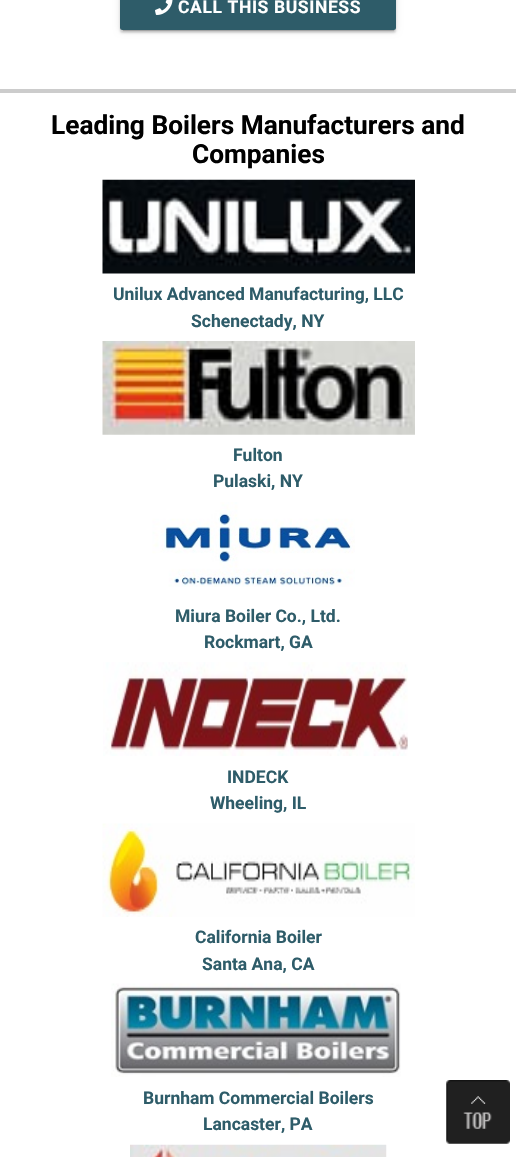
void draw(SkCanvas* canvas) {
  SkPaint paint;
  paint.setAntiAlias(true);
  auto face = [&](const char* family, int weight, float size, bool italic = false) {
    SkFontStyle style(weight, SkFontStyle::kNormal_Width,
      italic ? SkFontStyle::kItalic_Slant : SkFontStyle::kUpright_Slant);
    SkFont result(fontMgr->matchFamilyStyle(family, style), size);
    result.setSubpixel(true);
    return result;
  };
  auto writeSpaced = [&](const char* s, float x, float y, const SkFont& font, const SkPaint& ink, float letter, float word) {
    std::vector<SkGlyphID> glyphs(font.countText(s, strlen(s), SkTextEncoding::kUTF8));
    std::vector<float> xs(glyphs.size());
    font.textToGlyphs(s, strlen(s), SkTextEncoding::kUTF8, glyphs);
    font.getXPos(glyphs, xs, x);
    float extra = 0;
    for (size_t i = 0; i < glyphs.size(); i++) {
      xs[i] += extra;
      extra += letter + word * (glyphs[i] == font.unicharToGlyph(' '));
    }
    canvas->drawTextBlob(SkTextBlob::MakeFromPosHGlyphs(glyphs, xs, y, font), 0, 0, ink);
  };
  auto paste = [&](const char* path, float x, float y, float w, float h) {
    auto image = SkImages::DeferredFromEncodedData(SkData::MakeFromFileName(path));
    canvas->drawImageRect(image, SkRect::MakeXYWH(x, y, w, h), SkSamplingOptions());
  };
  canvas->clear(0xffffffff);
  paint.setColor(0x33000000);
  paint.setMaskFilter(SkMaskFilter::MakeBlur(kNormal_SkBlurStyle, 0.5f));
  canvas->drawRect(SkRect::MakeXYWH(123, -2, 271, 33), paint);
  paint.setMaskFilter(nullptr);
  paint.setColor(0x1f000000);
  paint.setMaskFilter(SkMaskFilter::MakeBlur(kNormal_SkBlurStyle, 3));
  canvas->drawRoundRect(SkRect::MakeXYWH(120, -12, 276, 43), 2.5f, 2.5f, paint);
  paint.setMaskFilter(nullptr);
  paint.setColor(0x24000000);
  paint.setMaskFilter(SkMaskFilter::MakeBlur(kNormal_SkBlurStyle, 1));
  canvas->drawRoundRect(SkRect::MakeXYWH(120, -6, 276, 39), 2.5f, 2.5f, paint);
  paint.setMaskFilter(nullptr);
  paint.setColor(0xff2e5c69);
  canvas->drawRoundRect(SkRect::MakeXYWH(120, -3, 276, 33), 2.5f, 2.5f, paint);
  paste("img/1.png", 155, 0, 18, 15);
  paint.setColor(0xffcccccc);
  canvas->drawRect(SkRect::MakeXYWH(0, 89, 516, 4), paint);
  paste("img/2.png", 102, 179, 313, 95);
  paste("img/3.png", 102, 341, 313, 94);
  paste("img/4.png", 152, 502, 203, 85);
  paste("img/5.png", 103, 662, 305, 94);
  paste("img/6.png", 102, 823, 313, 94);
  paste("img/7.png", 111, 983, 290, 94);
  paste("img/8.png", 130, 1144, 257, 13);
  paste("img/9.png", 446, 1080, 64, 64);
  auto f0 = face("Roboto", 700, 17.5f);
  paint.setColor(0xffffffff);
  writeSpaced("CALL THIS BUSINESS", 178, 13, f0, paint, 0.6f, 0);
  auto f1 = face("Roboto", 700, 26.25f);
  paint.setColor(0xff000000);
  canvas->drawString("Leading Boilers Manufacturers and", 51, 134, f1, paint);
  canvas->drawString("Companies", 192, 163, f1, paint);
  paint.setColor(0xff2e5c69);
  {
    const struct { const char* s; float x, y; } items[] = {
      {"Unilux Advanced Manufacturing, LLC", 113, 300},
      {"Schenectady, NY", 191, 327},
      {"Fulton", 233, 461},
      {"Pulaski, NY", 213, 487},
      {"Miura Boiler Co., Ltd.", 175, 622},
      {"Rockmart, GA", 204, 648},
      {"INDECK", 227, 783},
      {"Wheeling, IL", 210, 809},
      {"California Boiler", 195, 943},
      {"Santa Ana, CA", 202, 970},
      {"Burnham Commercial Boilers", 143, 1104},
      {"Lancaster, PA", 203, 1130},
    };
    for (auto [s, x, y] : items) {
      canvas->drawString(s, x, y, f0, paint);
    }
  }
}
